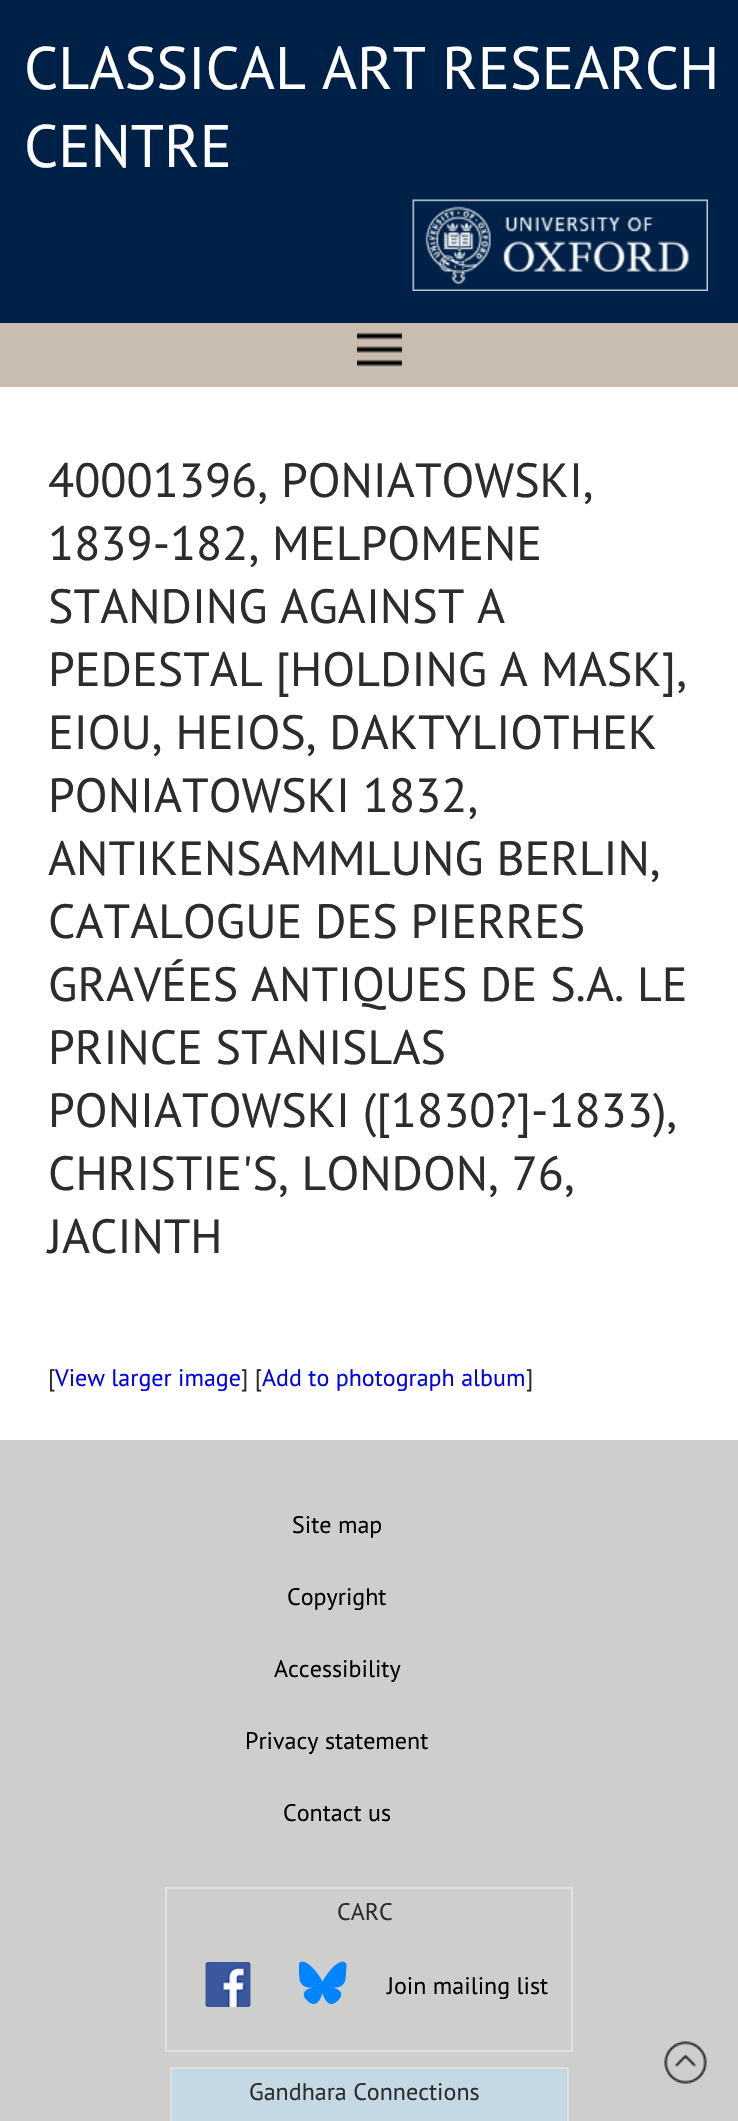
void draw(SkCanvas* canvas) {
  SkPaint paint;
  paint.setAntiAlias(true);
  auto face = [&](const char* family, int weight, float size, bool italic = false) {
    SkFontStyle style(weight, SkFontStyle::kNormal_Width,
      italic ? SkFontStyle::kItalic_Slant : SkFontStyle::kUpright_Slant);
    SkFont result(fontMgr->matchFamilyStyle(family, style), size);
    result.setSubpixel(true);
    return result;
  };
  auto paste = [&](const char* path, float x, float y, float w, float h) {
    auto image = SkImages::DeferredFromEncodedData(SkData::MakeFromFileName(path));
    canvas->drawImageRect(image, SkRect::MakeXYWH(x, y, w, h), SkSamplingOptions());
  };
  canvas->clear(0xffffffff);
  paint.setColor(0xff002147);
  canvas->drawRect(SkRect::MakeXYWH(0, 0, 738, 323), paint);
  paste("img/1.png", 412, 199, 296, 92);
  paint.setColor(0xffc8bdae);
  canvas->drawRect(SkRect::MakeXYWH(0, 323, 738, 64), paint);
  paste("img/2.png", 357, 332, 45, 35);
  paint.setColor(0xffcececc);
  canvas->drawRect(SkRect::MakeXYWH(0, 1440, 738, 681), paint);
  paint.setStroke(true);
  paint.setStrokeWidth(2);
  paint.setColor(0xffe0e0e0);
  canvas->drawRect(SkRect::MakeXYWH(166, 1888, 406, 163), paint);
  paste("img/3.png", 205, 1962, 46, 45);
  paste("img/4.png", 299, 1961, 48, 43);
  paint.setStroke(false);
  paint.setColor(0xffc5d9e4);
  canvas->drawRect(SkRect::MakeXYWH(171, 2068, 397, 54), paint);
  paint.setStroke(true);
  paint.setColor(0xffe0e0e0);
  canvas->drawRect(SkRect::MakeXYWH(171, 2068, 397, 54), paint);
  paste("img/5.png", 664, 2041, 43, 43);
  auto f0 = face("PT Sans", 400, 60);
  paint.setStroke(false);
  paint.setColor(0xffffffff);
  canvas->drawString("CLASSICAL ART RESEARCH", 24, 89, f0, paint);
  canvas->drawString("CENTRE", 24, 167, f0, paint);
  auto f1 = face("PT Sans", 400, 48);
  paint.setColor(0xff2c2c2c);
  {
    const struct { const char* s; float x, y; } items[] = {
      {"40001396, PONIATOWSKI,", 48, 497},
      {"1839-182, MELPOMENE", 48, 560},
      {"STANDING AGAINST A", 48, 623},
      {"PEDESTAL [HOLDING A MASK],", 48, 686},
      {"EIOU, HEIOS, DAKTYLIOTHEK", 48, 749},
      {"PONIATOWSKI 1832,", 48, 812},
      {"ANTIKENSAMMLUNG BERLIN,", 48, 875},
      {"CATALOGUE DES PIERRES", 48, 938},
      {"GRAVÉES ANTIQUES DE S.A. LE", 48, 1001},
      {"PRINCE STANISLAS", 48, 1064},
      {"PONIATOWSKI ([1830?]-1833),", 48, 1127},
      {"CHRISTIE'S, LONDON, 76,", 48, 1190},
      {"JACINTH", 48, 1253},
    };
    for (auto [s, x, y] : items) {
      canvas->drawString(s, x, y, f1, paint);
    }
  }
  auto f2 = face("PT Sans", 400, 24);
  canvas->drawString("[", 48, 1386, f2, paint);
  paint.setColor(0xff0000ee);
  canvas->drawString("View larger image", 55, 1386, f2, paint);
  paint.setColor(0xff2c2c2c);
  canvas->drawString("] [", 241, 1386, f2, paint);
  paint.setColor(0xff0000ee);
  canvas->drawString("Add to photograph album", 262, 1386, f2, paint);
  paint.setColor(0xff2c2c2c);
  canvas->drawString("]", 526, 1386, f2, paint);
  paint.setColor(0xff000000);
  {
    const struct { const char* s; float x, y; } items[] = {
      {"Site map", 292, 1533},
      {"Copyright", 287, 1605},
      {"Accessibility", 274, 1677},
      {"Privacy statement", 245, 1749},
      {"Contact us", 283, 1821},
    };
    for (auto [s, x, y] : items) {
      canvas->drawString(s, x, y, f2, paint);
    }
  }
  paint.setColor(0xff2c2c2c);
  canvas->drawString("CARC", 337, 1920, f2, paint);
  paint.setColor(0xff000000);
  canvas->drawString("Join mailing list", 387, 1994, f2, paint);
  paint.setColor(0xff2c2c2c);
  canvas->drawString("Gandhara Connections", 249, 2100, f2, paint);
}
